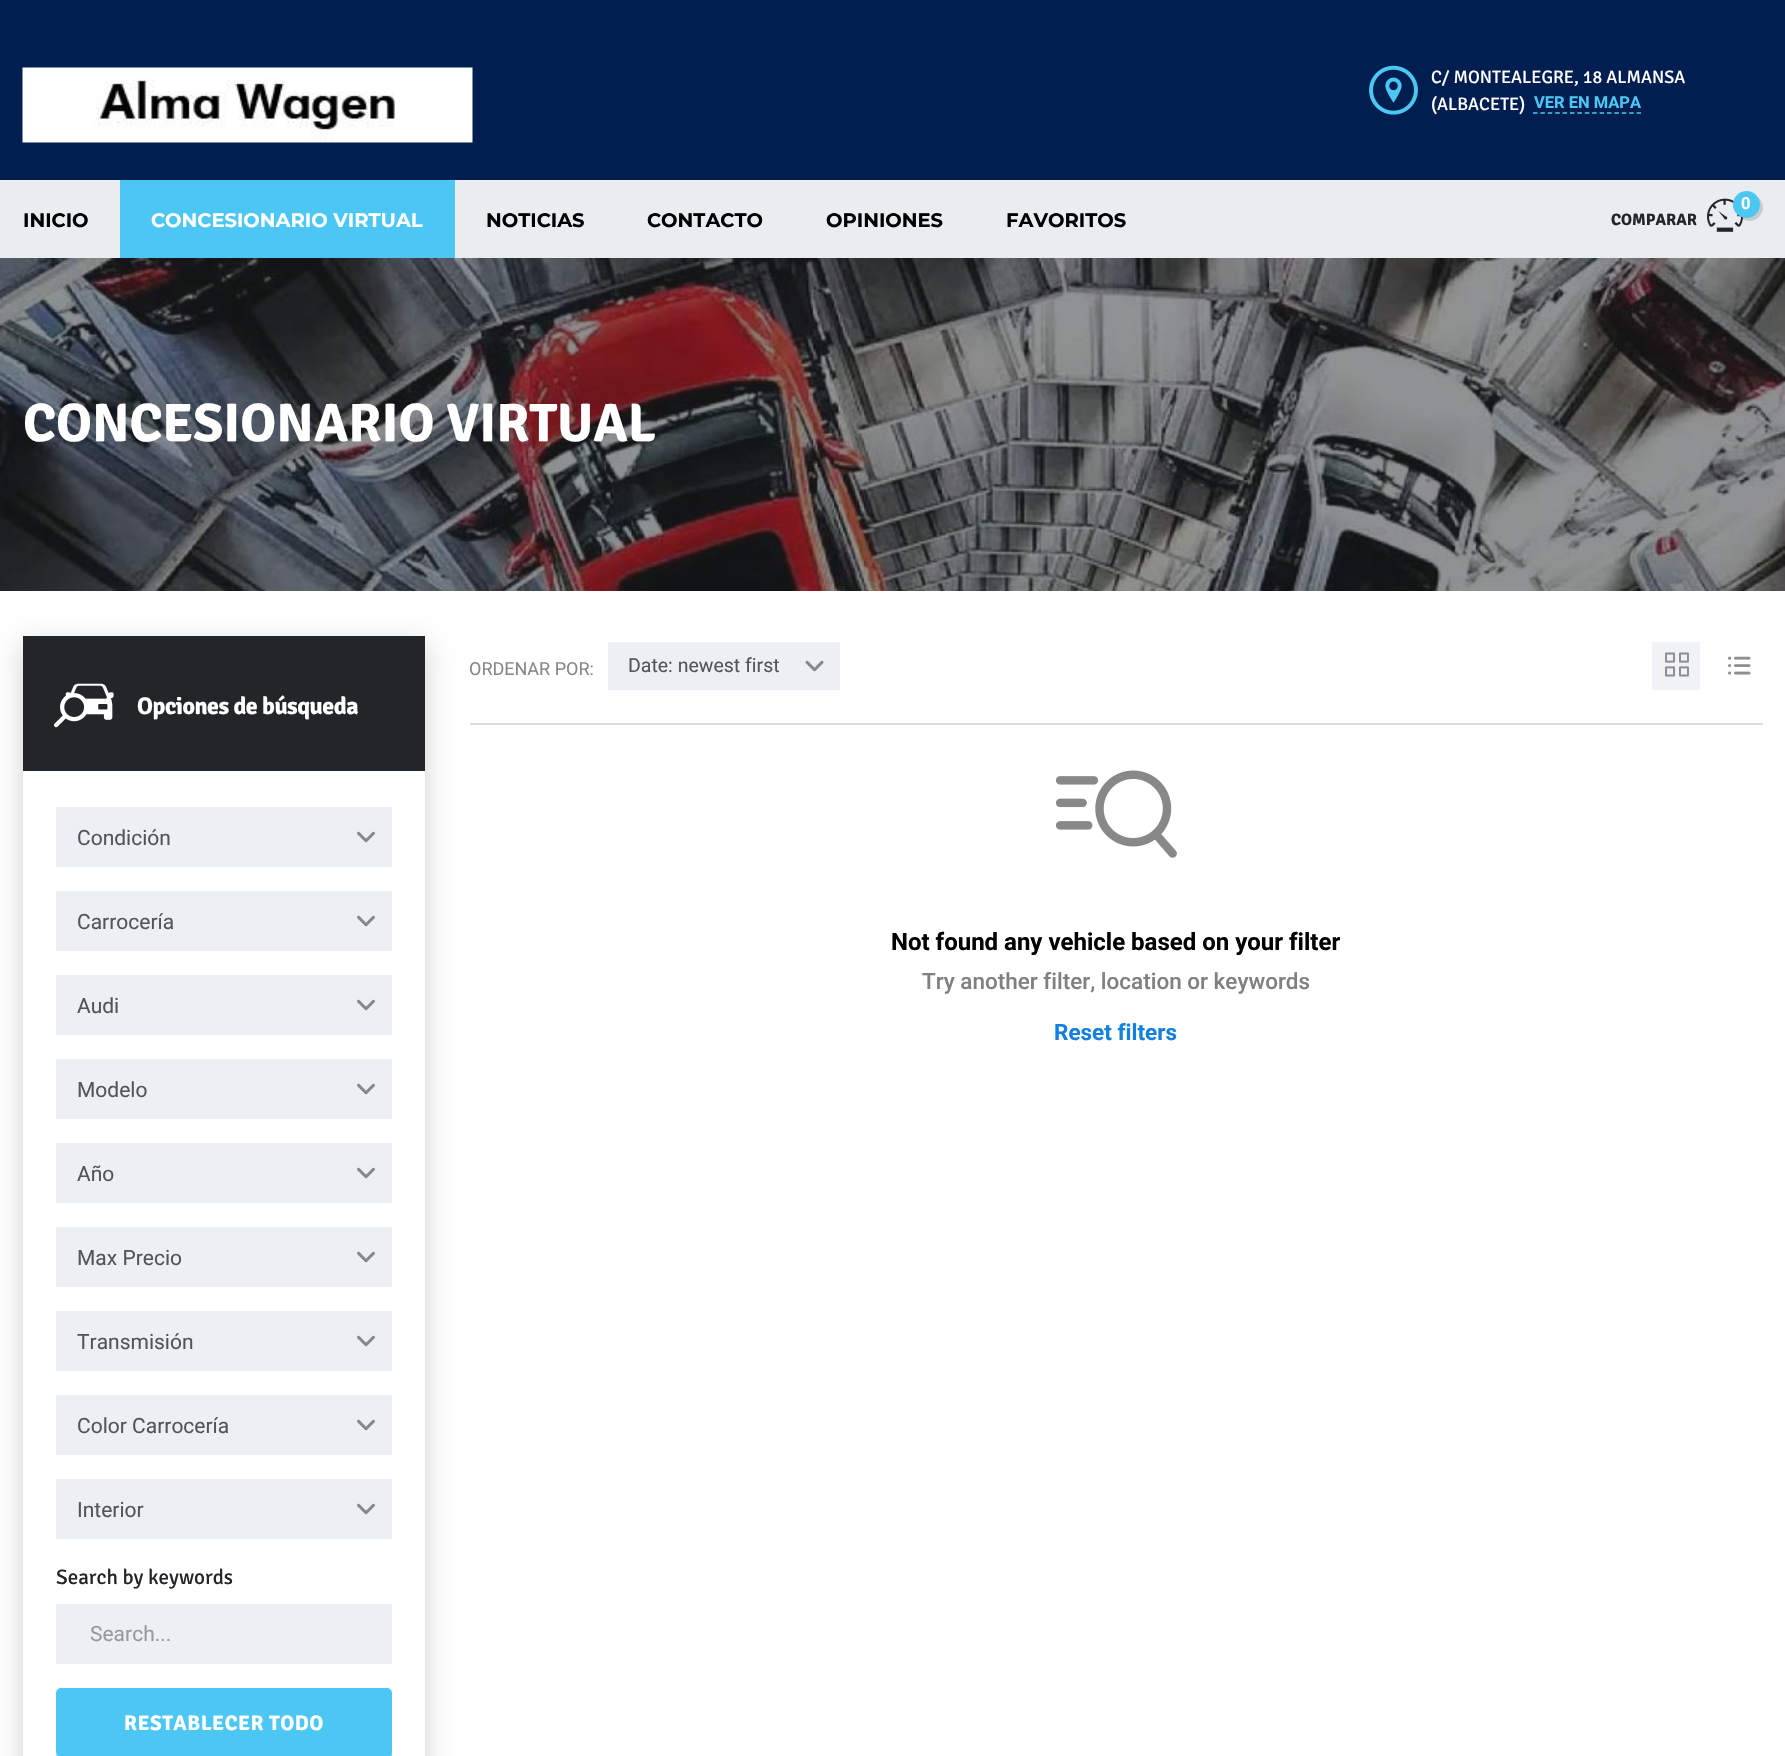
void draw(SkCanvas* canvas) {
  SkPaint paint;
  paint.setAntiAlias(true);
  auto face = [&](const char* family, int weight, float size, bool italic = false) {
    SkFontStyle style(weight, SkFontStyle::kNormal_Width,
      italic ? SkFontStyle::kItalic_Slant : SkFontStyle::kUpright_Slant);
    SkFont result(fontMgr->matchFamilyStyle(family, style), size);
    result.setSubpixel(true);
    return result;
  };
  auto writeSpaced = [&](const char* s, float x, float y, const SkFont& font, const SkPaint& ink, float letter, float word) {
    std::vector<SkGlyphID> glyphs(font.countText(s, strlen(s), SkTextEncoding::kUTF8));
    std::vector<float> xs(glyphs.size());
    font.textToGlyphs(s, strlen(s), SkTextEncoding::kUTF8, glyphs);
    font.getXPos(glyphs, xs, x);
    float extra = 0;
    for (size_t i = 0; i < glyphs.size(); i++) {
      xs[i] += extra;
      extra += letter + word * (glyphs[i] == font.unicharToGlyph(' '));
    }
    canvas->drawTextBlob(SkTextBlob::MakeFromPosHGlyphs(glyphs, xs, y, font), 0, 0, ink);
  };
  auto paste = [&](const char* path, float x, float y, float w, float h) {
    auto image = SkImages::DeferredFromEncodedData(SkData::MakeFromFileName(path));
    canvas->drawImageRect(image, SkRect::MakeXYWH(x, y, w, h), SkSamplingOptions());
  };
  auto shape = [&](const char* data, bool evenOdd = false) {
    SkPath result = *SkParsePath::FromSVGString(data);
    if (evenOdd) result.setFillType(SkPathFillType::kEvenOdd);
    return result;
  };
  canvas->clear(0xffffffff);
  paint.setColor(0xff001e50);
  canvas->drawRect(SkRect::MakeXYWH(0, 0, 1785, 180), paint);
  paste("img/1.png", 22, 67, 451, 76);
  paste("img/2.png", 1369, 65, 49, 50);
  paint.setStroke(true);
  paint.setStrokeWidth(1.5f);
  paint.setColor(0xff4cc7f4);
  paint.setPathEffect(SkDashPathEffect::Make({{4.5f, 2.9f}}, 0));
  canvas->drawPath(shape("M1533 113H1641"), paint);
  paint.setPathEffect(nullptr);
  paint.setStroke(false);
  paint.setColor(0xffeaedf0);
  canvas->drawRect(SkRect::MakeXYWH(0, 180, 1785, 78), paint);
  paint.setColor(0xff4cc7f4);
  canvas->drawRect(SkRect::MakeXYWH(120, 180, 335, 78), paint);
  paste("img/3.png", 1707, 198, 36, 34);
  paint.setColor(0x24000000);
  canvas->drawPath(shape("M1738.5 215C1743 222 1753 223 1759 217C1765 211 1764 201 1757 196.5C1765.5 208.5 1750.5 223.5 1738.5 215Z"), paint);
  paint.setColor(0xff4cc7f4);
  canvas->drawCircle(1746.5f, 204.5f, 13.5f, paint);
  paste("img/4.png", 0, 258, 1785, 333);
  paint.setColor(0x2e000000);
  paint.setMaskFilter(SkMaskFilter::MakeBlur(kNormal_SkBlurStyle, 13.5f));
  canvas->drawRect(SkRect::MakeXYWH(23, 644, 402, 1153), paint);
  paint.setMaskFilter(nullptr);
  paint.setColor(0xffffffff);
  canvas->drawRect(SkRect::MakeXYWH(23, 771, 402, 985), paint);
  paint.setColor(0xff232628);
  canvas->drawRect(SkRect::MakeXYWH(23, 636, 402, 135), paint);
  paste("img/5.png", 54, 683, 60, 45);
  paint.setColor(0xffeceff3);
  canvas->drawRect(SkRect::MakeXYWH(56, 807, 336, 60), paint);
  paste("img/6.png", 357, 831, 18, 12);
  canvas->drawRect(SkRect::MakeXYWH(56, 891, 336, 60), paint);
  paste("img/6.png", 357, 915, 18, 12);
  canvas->drawRect(SkRect::MakeXYWH(56, 975, 336, 60), paint);
  paste("img/6.png", 357, 999, 18, 12);
  canvas->drawRect(SkRect::MakeXYWH(56, 1059, 336, 60), paint);
  paste("img/6.png", 357, 1083, 18, 12);
  canvas->drawRect(SkRect::MakeXYWH(56, 1143, 336, 60), paint);
  paste("img/6.png", 357, 1167, 18, 12);
  canvas->drawRect(SkRect::MakeXYWH(56, 1227, 336, 60), paint);
  paste("img/6.png", 357, 1251, 18, 12);
  canvas->drawRect(SkRect::MakeXYWH(56, 1311, 336, 60), paint);
  paste("img/6.png", 357, 1335, 18, 12);
  canvas->drawRect(SkRect::MakeXYWH(56, 1395, 336, 60), paint);
  paste("img/6.png", 357, 1419, 18, 12);
  canvas->drawRect(SkRect::MakeXYWH(56, 1479, 336, 60), paint);
  paste("img/6.png", 357, 1503, 18, 12);
  canvas->drawRect(SkRect::MakeXYWH(56, 1604, 336, 60), paint);
  paint.setColor(0xff79d5f7);
  canvas->drawPath(shape("M56 1754V1755C56 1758 58 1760 61 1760H387C390 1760 392 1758 392 1755V1696V1694V1752C392 1754 389 1756 387 1756H60C58 1756 57 1756 56 1754Z"), paint);
  paint.setColor(0xff4cc7f4);
  canvas->drawRoundRect(SkRect::MakeXYWH(56, 1688, 336, 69), 5, 5, paint);
  paint.setColor(0xffdddddd);
  canvas->drawRect(SkRect::MakeXYWH(470, 723, 1293, 2), paint);
  paint.setColor(0xffeceff3);
  canvas->drawRect(SkRect::MakeXYWH(608, 642, 232, 48), paint);
  paste("img/7.png", 805, 660, 19, 12);
  paint.setColor(0xfff0f2f5);
  canvas->drawRect(SkRect::MakeXYWH(1652, 642, 48, 48), paint);
  paste("img/8.png", 1665, 652, 24, 25);
  paste("img/9.png", 1728, 656, 23, 19);
  paste("img/10.png", 1055, 770, 122, 88);
  auto f0 = face("Signika", 400, 18);
  paint.setColor(0xffffffff);
  canvas->drawString("C/ MONTEALEGRE, 18 ALMANSA", 1431, 83, f0, paint);
  canvas->drawString("(ALBACETE)", 1431, 110, f0, paint);
  auto f1 = face("Roboto", 700, 16.5f);
  paint.setColor(0xff4cc7f4);
  canvas->drawString("VER EN MAPA", 1534, 108, f1, paint);
  auto f2 = face("Montserrat", 700, 19.5f);
  paint.setColor(0xff010101);
  canvas->drawString("INICIO", 23, 227, f2, paint);
  paint.setColor(0xffffffff);
  canvas->drawString("CONCESIONARIO VIRTUAL", 151, 227, f2, paint);
  paint.setColor(0xff010101);
  {
    const struct { const char* s; float x, y; } items[] = {
      {"NOTICIAS", 486, 227},
      {"CONTACTO", 647, 227},
      {"OPINIONES", 826, 227},
      {"FAVORITOS", 1006, 227},
    };
    for (auto [s, x, y] : items) {
      canvas->drawString(s, x, y, f2, paint);
    }
  }
  auto f3 = face("Signika", 700, 16.5f);
  paint.setColor(0xff232628);
  canvas->drawString("COMPARAR", 1611, 225, f3, paint);
  paint.setColor(0xffffffff);
  canvas->drawString("0", 1741, 209, f1, paint);
  auto f4 = face("Signika", 700, 54);
  canvas->drawString("CONCESIONARIO VIRTUAL", 23, 441, f4, paint);
  auto f5 = face("Signika", 700, 24);
  writeSpaced("Opciones de búsqueda", 137, 714, f5, paint, -0.5f, 0);
  auto f6 = face("Roboto", 400, 21);
  paint.setColor(0xff555555);
  {
    const struct { const char* s; float x, y; } items[] = {
      {"Condición", 77, 845},
      {"Carrocería", 77, 929},
      {"Audi", 77, 1013},
      {"Modelo", 77, 1097},
      {"Año", 77, 1181},
      {"Max Precio", 77, 1265},
      {"Transmisión", 77, 1349},
      {"Color Carrocería", 77, 1433},
      {"Interior", 77, 1517},
    };
    for (auto [s, x, y] : items) {
      canvas->drawString(s, x, y, f6, paint);
    }
  }
  auto f7 = face("Signika", 400, 21);
  paint.setColor(0xff232628);
  canvas->drawString("Search by keywords", 56, 1584, f7, paint);
  paint.setColor(0xff999999);
  canvas->drawString("Search...", 90, 1641, f6, paint);
  auto f8 = face("Signika", 700, 21);
  paint.setColor(0xffffffff);
  writeSpaced("RESTABLECER TODO", 124, 1730, f8, paint, 0.5f, 0);
  auto f9 = face("Roboto", 400, 18);
  paint.setColor(0xff888888);
  canvas->drawString("ORDENAR POR:", 469, 675, f9, paint);
  auto f10 = face("Roboto", 400, 19.5f);
  paint.setColor(0xff555555);
  canvas->drawString("Date: newest first", 628, 672, f10, paint);
  auto f11 = face("Roboto", 700, 24);
  paint.setColor(0xff010101);
  canvas->drawString("Not found any vehicle based on your filter", 891, 950, f11, paint);
  auto f12 = face("Roboto", 500, 22.5f);
  paint.setColor(0xff808080);
  canvas->drawString("Try another filter, location or keywords", 922, 989, f12, paint);
  auto f13 = face("Roboto", 700, 22.5f);
  paint.setColor(0xff1280df);
  canvas->drawString("Reset filters", 1054, 1040, f13, paint);
}
